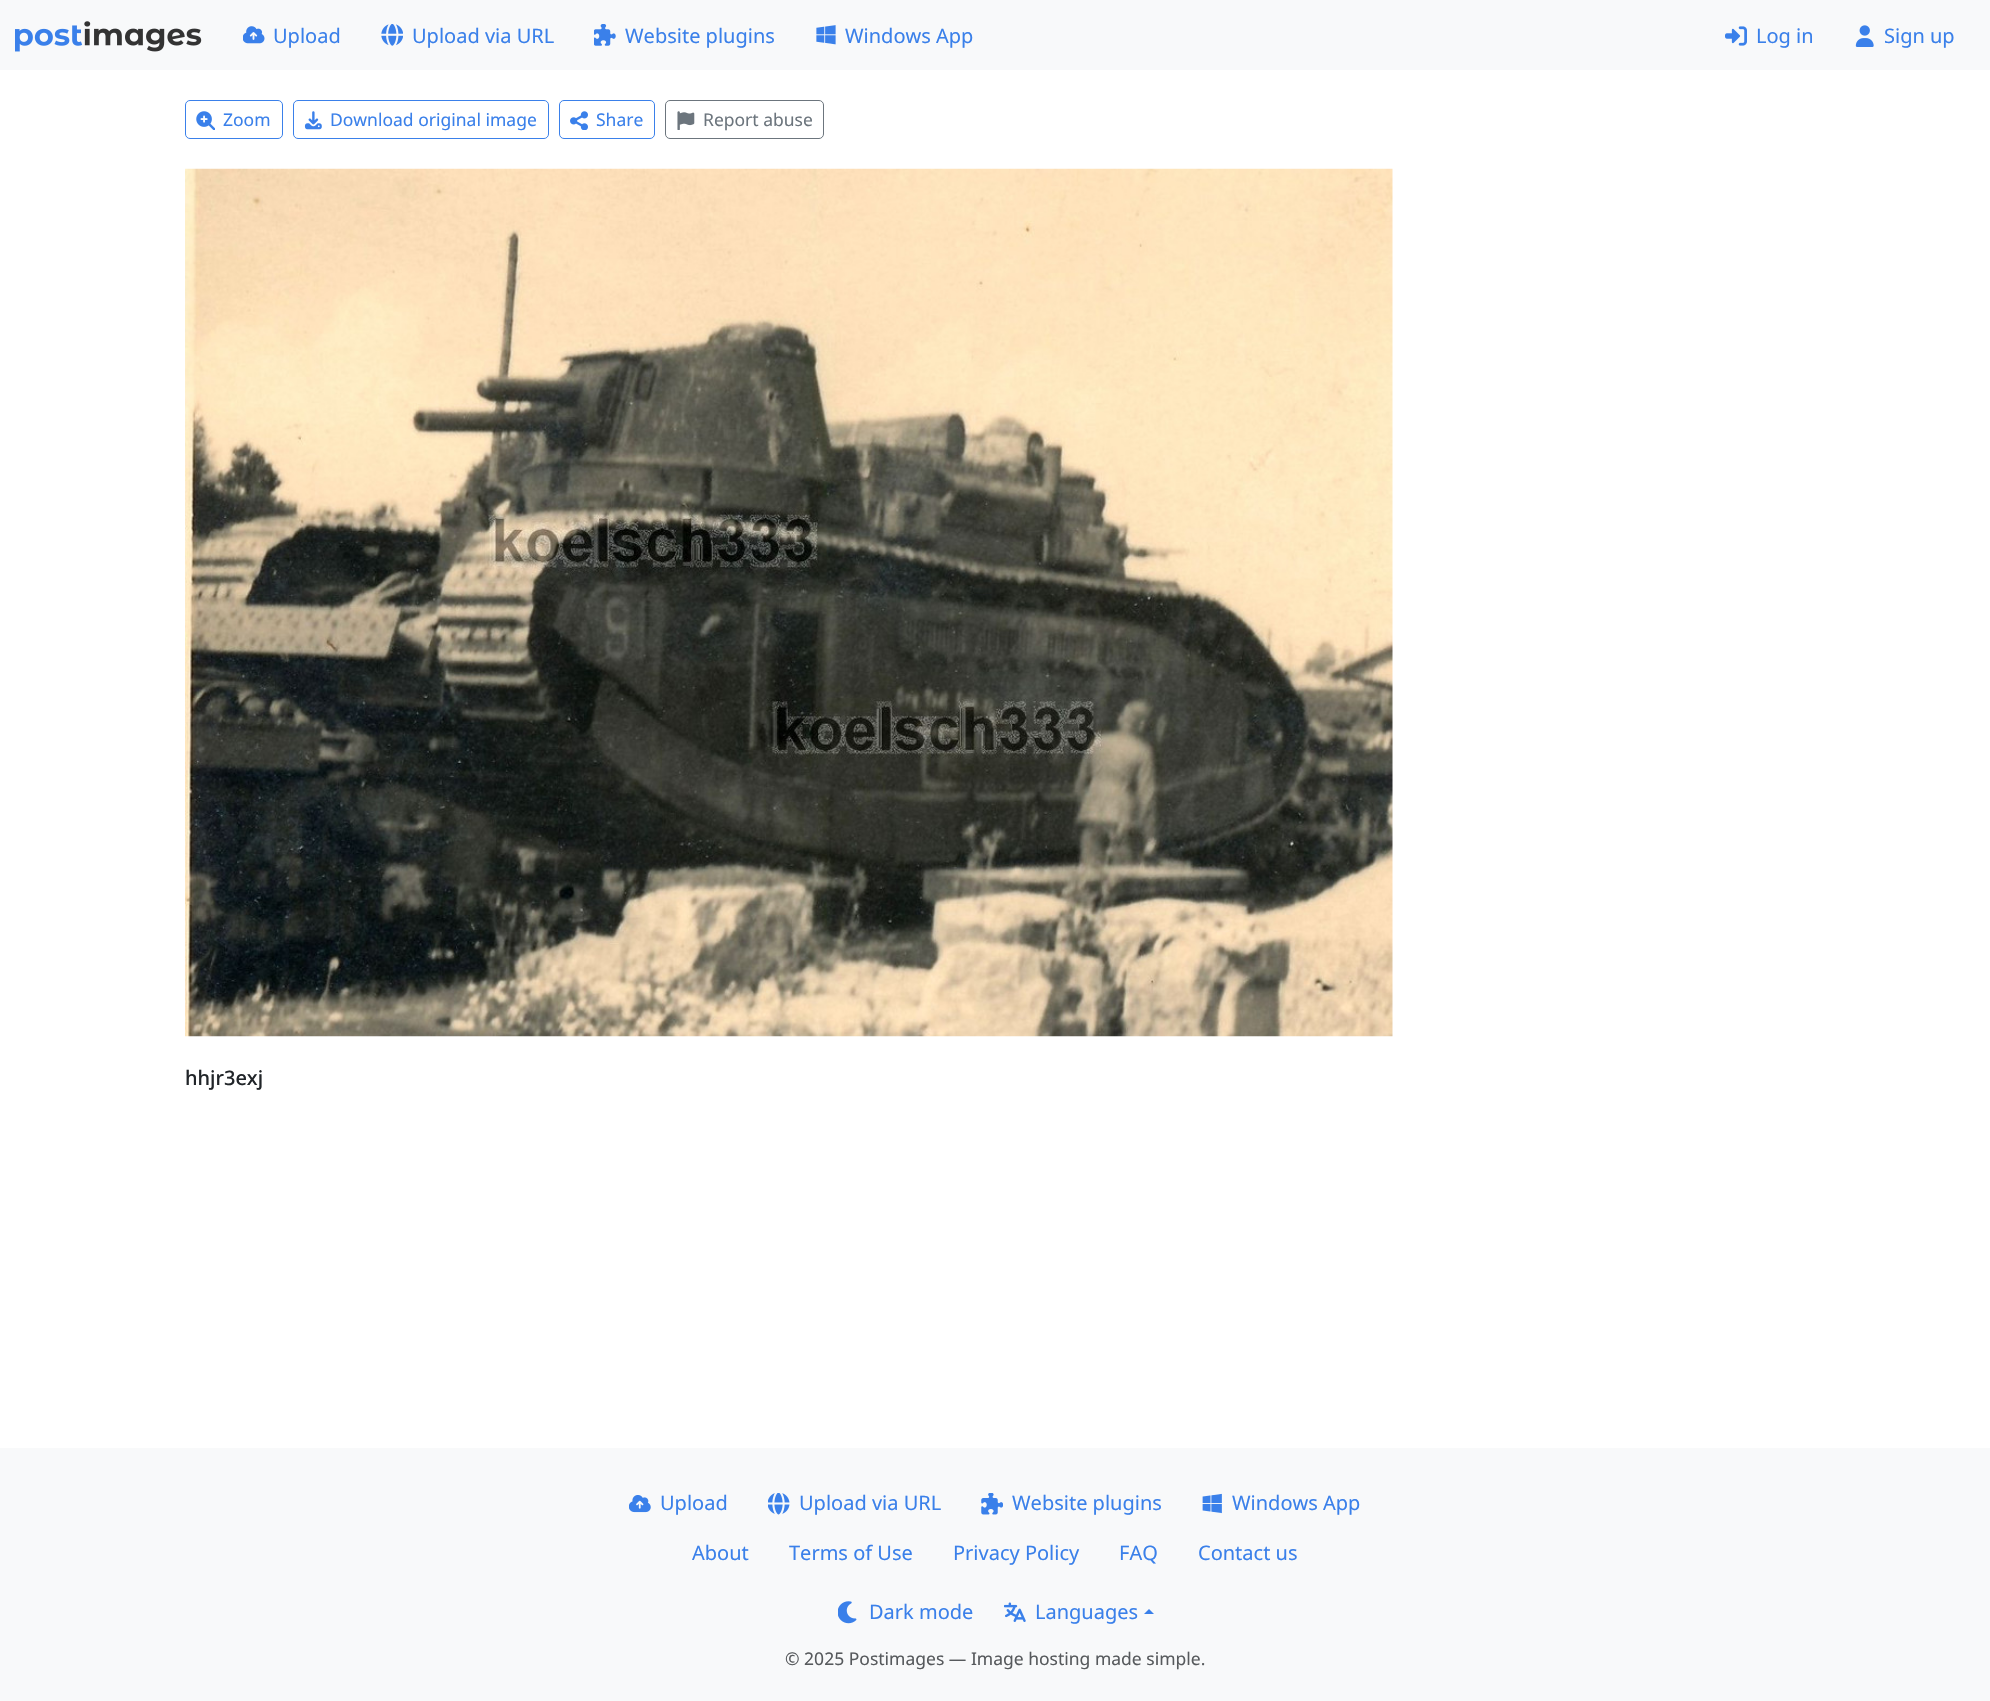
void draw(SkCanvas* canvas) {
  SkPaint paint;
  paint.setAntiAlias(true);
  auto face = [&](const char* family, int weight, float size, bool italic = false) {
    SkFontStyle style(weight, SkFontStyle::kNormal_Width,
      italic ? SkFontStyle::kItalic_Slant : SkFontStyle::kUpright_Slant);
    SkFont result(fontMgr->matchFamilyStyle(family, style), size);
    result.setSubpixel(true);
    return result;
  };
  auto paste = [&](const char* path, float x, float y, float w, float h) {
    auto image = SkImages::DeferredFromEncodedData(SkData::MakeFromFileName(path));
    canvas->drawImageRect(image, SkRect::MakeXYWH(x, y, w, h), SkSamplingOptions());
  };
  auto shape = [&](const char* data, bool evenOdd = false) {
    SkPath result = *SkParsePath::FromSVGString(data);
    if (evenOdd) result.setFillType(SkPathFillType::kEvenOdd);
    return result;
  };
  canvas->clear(0xffffffff);
  paint.setColor(0xfff8f9fa);
  canvas->drawRect(SkRect::MakeXYWH(0, 0, 1990, 70), paint);
  paste("img/1.png", 15, 21, 187, 31);
  paste("img/2.png", 243, 26, 22, 18);
  paste("img/3.png", 381, 24, 22, 22);
  paste("img/4.png", 594, 24, 22, 22);
  paste("img/5.png", 816, 25, 20, 20);
  paste("img/6.png", 1725, 26, 22, 20);
  paste("img/7.png", 1855, 25, 19, 22);
  paint.setStroke(true);
  paint.setStrokeWidth(1);
  paint.setColor(0xff3a80ea);
  canvas->drawRoundRect(SkRect::MakeXYWH(185.5f, 100.5f, 97, 38), 4.5f, 4.5f, paint);
  paste("img/8.png", 196, 111, 19, 19);
  canvas->drawRoundRect(SkRect::MakeXYWH(293.5f, 100.5f, 255, 38), 4.5f, 4.5f, paint);
  paste("img/9.png", 304, 111, 18, 19);
  canvas->drawRoundRect(SkRect::MakeXYWH(559.5f, 100.5f, 95, 38), 4.5f, 4.5f, paint);
  paste("img/10.png", 570, 111, 18, 19);
  paint.setColor(0xff6c757d);
  canvas->drawRoundRect(SkRect::MakeXYWH(665.5f, 100.5f, 158, 38), 4.5f, 4.5f, paint);
  paste("img/11.png", 677, 111, 18, 19);
  paste("img/12.png", 185, 168, 1208, 869);
  paint.setStroke(false);
  paint.setColor(0xfff8f9fa);
  canvas->drawRect(SkRect::MakeXYWH(0, 1448, 1990, 253), paint);
  paste("img/13.png", 629, 1495, 22, 18);
  paste("img/14.png", 768, 1493, 22, 22);
  paste("img/15.png", 981, 1493, 22, 22);
  paste("img/16.png", 1202, 1493, 20, 21);
  paste("img/17.png", 838, 1601, 19, 23);
  paste("img/18.png", 1004, 1602, 22, 20);
  paint.setColor(0xff3a80ea);
  canvas->drawPath(shape("M1154 1614H1144L1149 1609Z"), paint);
  auto f0 = face("Noto Sans", 400, 20);
  {
    const struct { const char* s; float x, y; } items[] = {
      {"Upload", 273, 43},
      {"Upload via URL", 412, 43},
      {"Website plugins", 625, 43},
      {"Windows App", 845, 43},
      {"Log in", 1756, 43},
      {"Sign up", 1884, 43},
    };
    for (auto [s, x, y] : items) {
      canvas->drawString(s, x, y, f0, paint);
    }
  }
  auto f1 = face("Noto Sans", 400, 17.5f);
  {
    const struct { const char* s; float x, y; } items[] = {
      {"Zoom", 223, 126},
      {"Download original image", 330, 126},
      {"Share", 596, 126},
    };
    for (auto [s, x, y] : items) {
      canvas->drawString(s, x, y, f1, paint);
    }
  }
  paint.setColor(0xff6c757d);
  canvas->drawString("Report abuse", 703, 126, f1, paint);
  auto f2 = face("Noto Sans", 500, 20);
  paint.setColor(0xff212529);
  canvas->drawString("hhjr3exj", 185, 1085, f2, paint);
  paint.setColor(0xff3a80ea);
  {
    const struct { const char* s; float x, y; } items[] = {
      {"Upload", 660, 1510},
      {"Upload via URL", 799, 1510},
      {"Website plugins", 1012, 1510},
      {"Windows App", 1232, 1510},
      {"About", 692, 1560},
      {"Terms of Use", 789, 1560},
      {"Privacy Policy", 953, 1560},
      {"FAQ", 1119, 1560},
      {"Contact us", 1198, 1560},
      {"Dark mode", 869, 1619},
      {"Languages", 1035, 1619},
    };
    for (auto [s, x, y] : items) {
      canvas->drawString(s, x, y, f0, paint);
    }
  }
  paint.setColor(0xff575a5d);
  canvas->drawString("© 2025 Postimages — Image hosting made simple.", 785, 1665, f1, paint);
}
